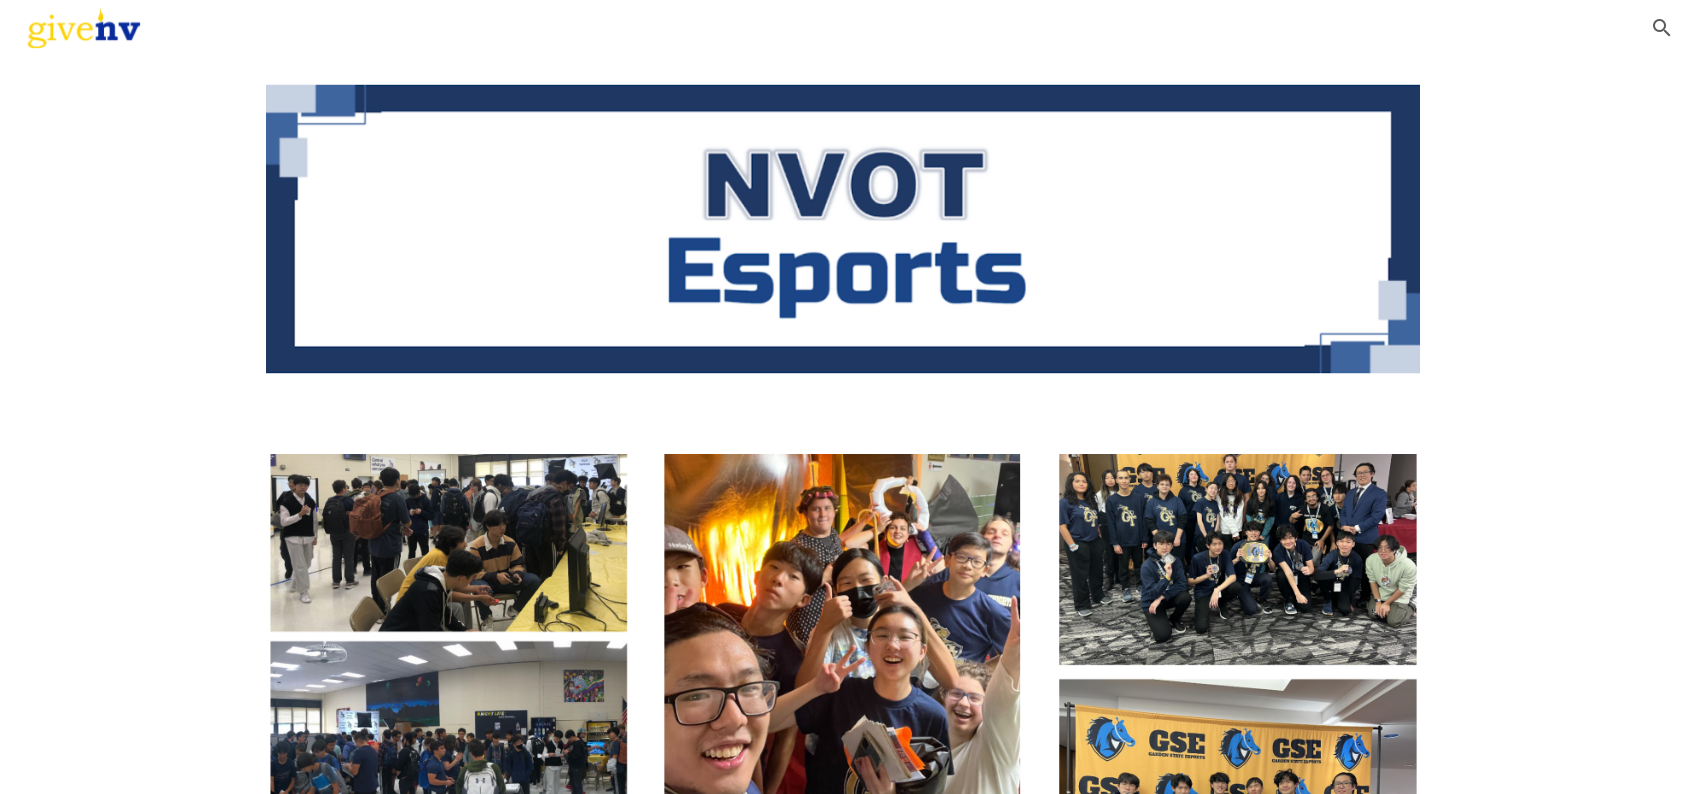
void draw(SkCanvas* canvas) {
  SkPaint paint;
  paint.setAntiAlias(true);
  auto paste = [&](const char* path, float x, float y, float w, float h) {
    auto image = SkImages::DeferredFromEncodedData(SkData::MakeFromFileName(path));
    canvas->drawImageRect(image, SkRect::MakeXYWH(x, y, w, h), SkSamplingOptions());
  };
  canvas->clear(0xffffffff);
  paste("img/1.png", 27, 7, 114, 42);
  paste("img/2.png", 1653, 19, 18, 18);
  paste("img/3.png", 266, 84, 1154, 290);
  paste("img/4.png", 270, 454, 358, 340);
  paste("img/5.png", 664, 454, 357, 340);
  paste("img/6.png", 1059, 454, 358, 340);
}
